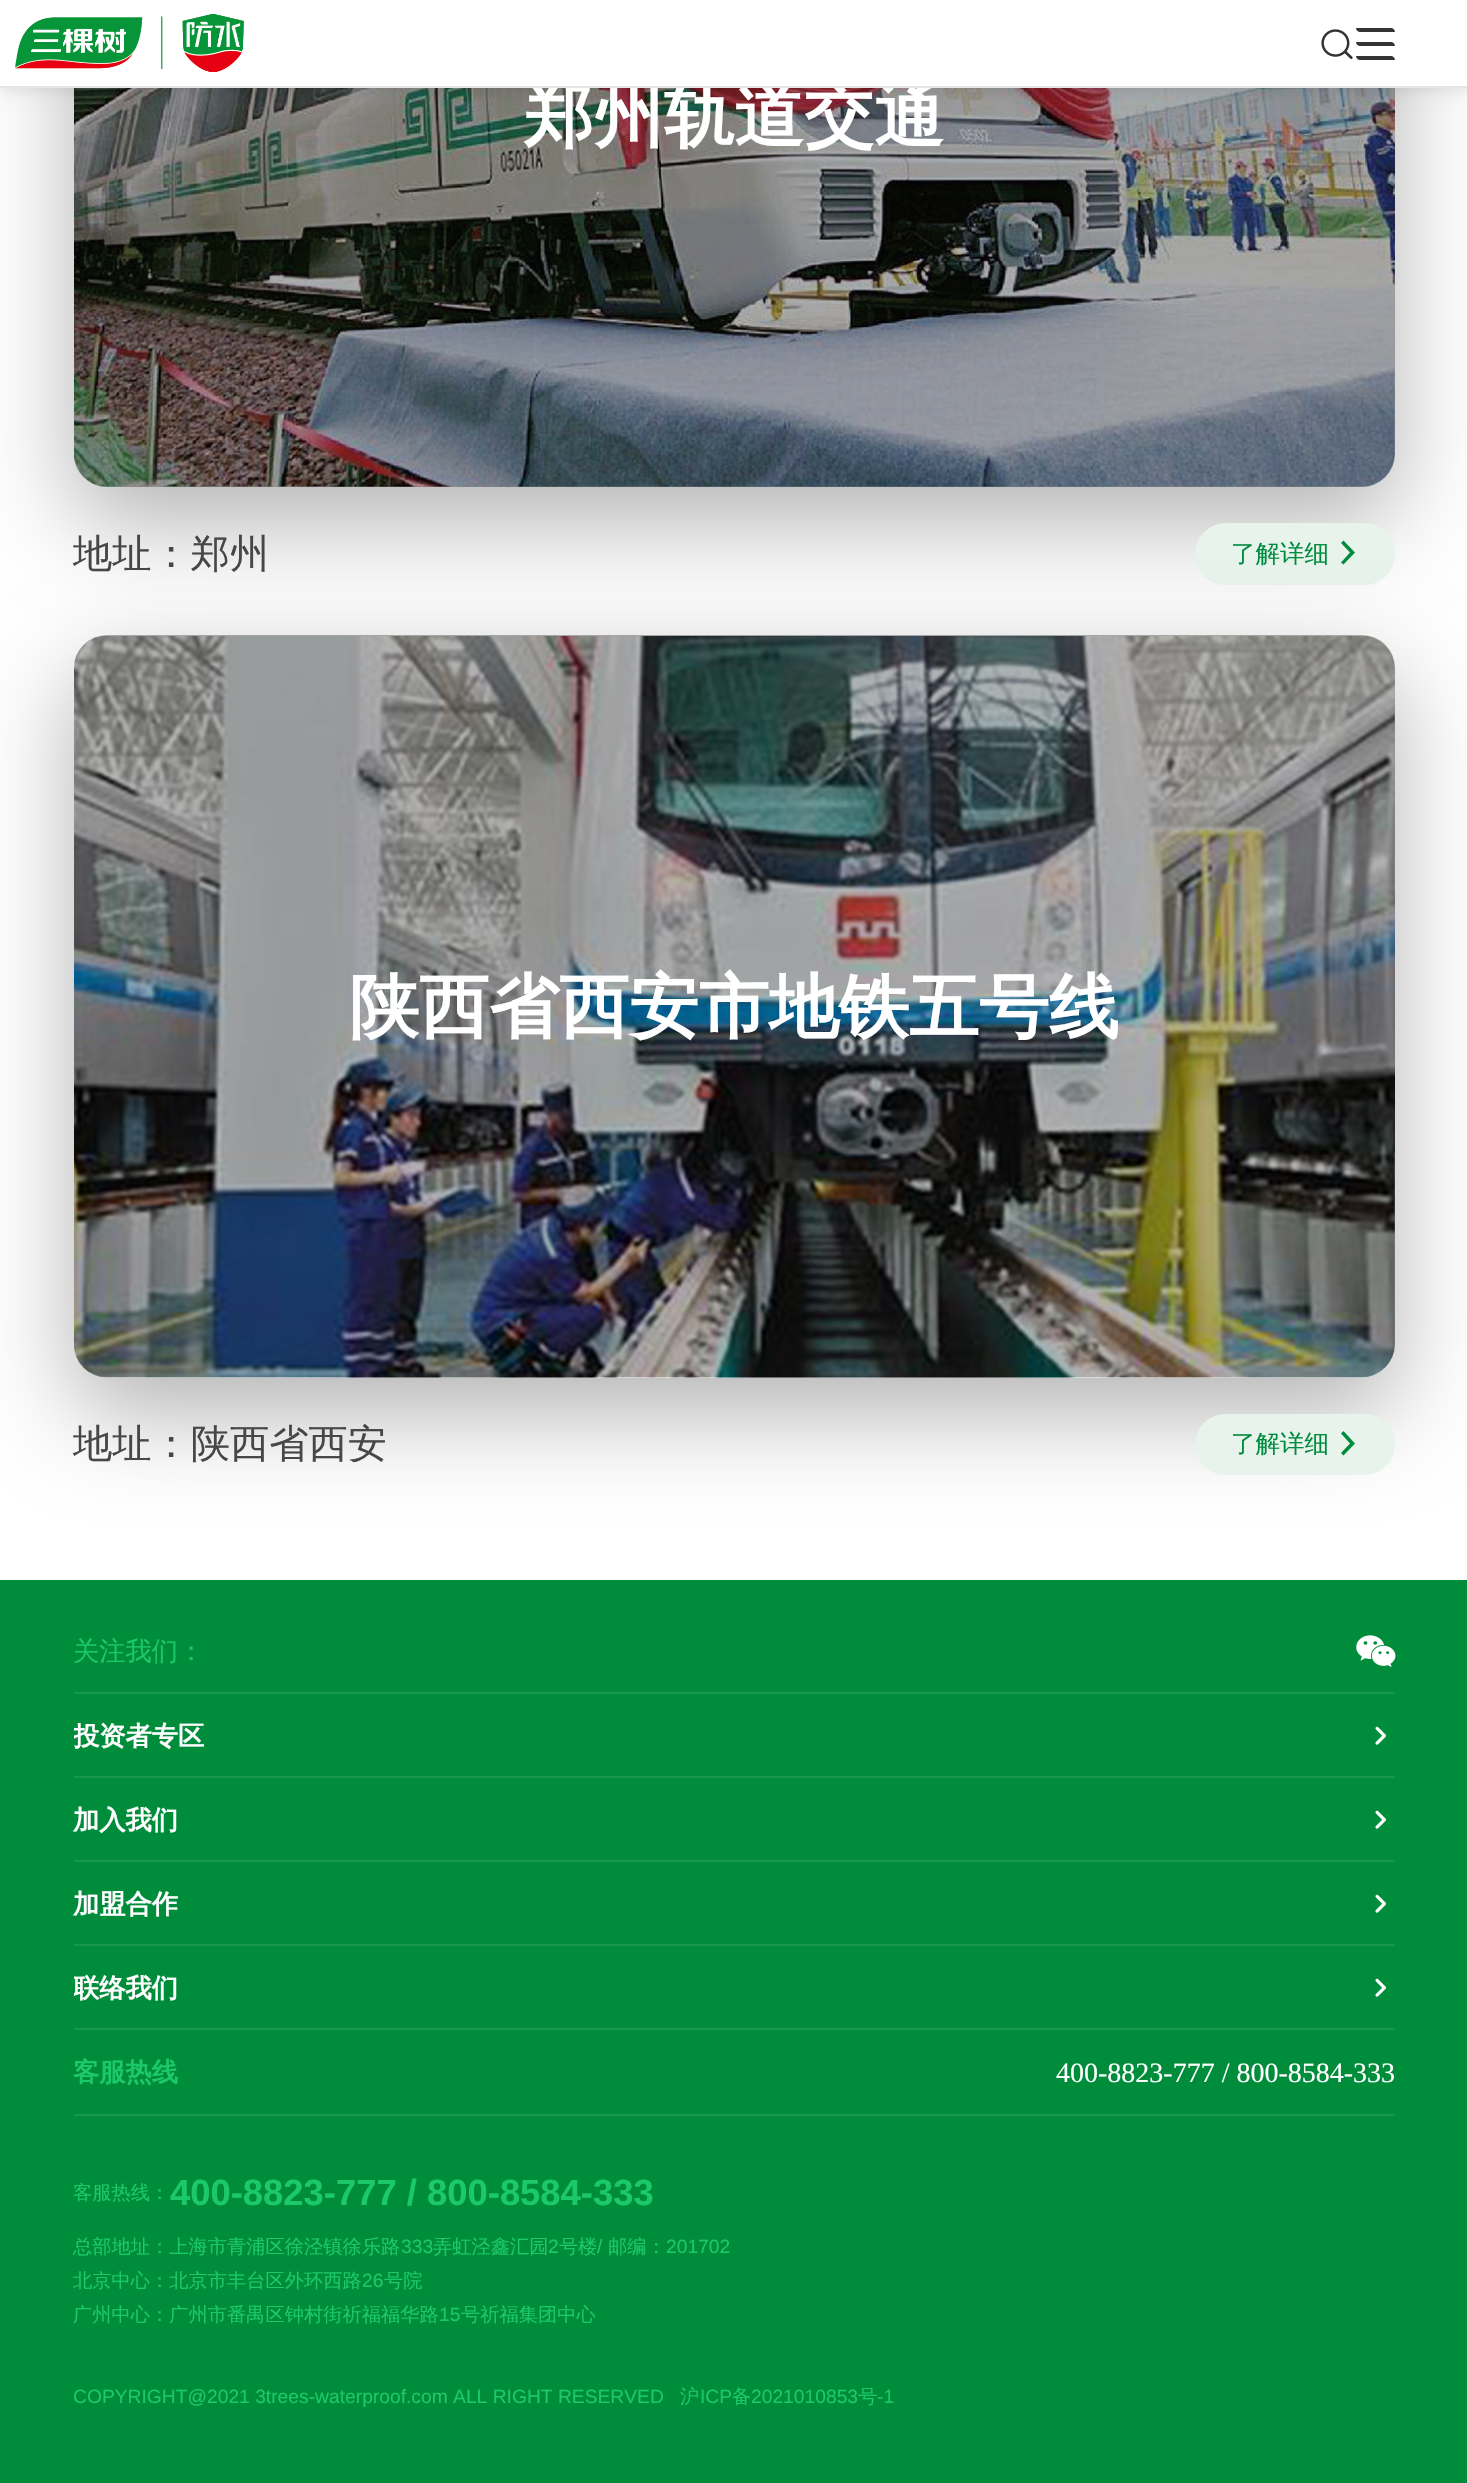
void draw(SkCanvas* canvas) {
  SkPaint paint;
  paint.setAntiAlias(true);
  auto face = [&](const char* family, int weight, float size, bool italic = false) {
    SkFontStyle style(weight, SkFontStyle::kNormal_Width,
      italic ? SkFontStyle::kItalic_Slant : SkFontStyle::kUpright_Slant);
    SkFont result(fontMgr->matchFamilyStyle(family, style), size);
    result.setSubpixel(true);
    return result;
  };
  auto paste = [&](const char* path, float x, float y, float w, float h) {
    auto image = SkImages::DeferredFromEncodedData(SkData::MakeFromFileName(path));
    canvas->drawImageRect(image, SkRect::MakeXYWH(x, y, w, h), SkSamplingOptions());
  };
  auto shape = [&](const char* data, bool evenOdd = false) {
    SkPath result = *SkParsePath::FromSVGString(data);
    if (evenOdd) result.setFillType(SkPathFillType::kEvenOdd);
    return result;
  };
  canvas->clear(0xffffffff);
  paint.setColor(0x4d000000);
  paint.setMaskFilter(SkMaskFilter::MakeBlur(kNormal_SkBlurStyle, 48));
  canvas->drawRoundRect(SkRect::MakeXYWH(74, -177, 1321, 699), 33, 33, paint);
  paint.setMaskFilter(nullptr);
  paste("img/3.png", 74, 88, 1321, 399);
  canvas->drawRoundRect(SkRect::MakeXYWH(74, -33, 1321, 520), 33, 33, paint);
  paint.setColor(0x1a000000);
  paint.setMaskFilter(SkMaskFilter::MakeBlur(kNormal_SkBlurStyle, 7));
  canvas->drawRect(SkRect::MakeXYWH(0, 4, 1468, 87), paint);
  paint.setMaskFilter(nullptr);
  paint.setColor(0xffffffff);
  canvas->drawRect(SkRect::MakeXYWH(0, 0, 1467, 86), paint);
  paste("img/1.png", 15, 13, 229, 59);
  paste("img/2.png", 1321, 29, 32, 30);
  paint.setColor(0xff333333);
  canvas->drawPath(shape("M1356 28H1391C1393 28 1395 30 1395 32H1360C1358 32 1356 30 1356 28Z"), paint);
  canvas->drawPath(shape("M1356 42H1391C1393 42 1395 44 1395 46H1360C1358 46 1356 44 1356 42Z"), paint);
  canvas->drawPath(shape("M1356 56H1391C1393 56 1395 58 1395 60H1360C1358 60 1356 58 1356 56Z"), paint);
  paint.setColor(0xffe7f3eb);
  canvas->drawRoundRect(SkRect::MakeXYWH(1195, 523, 200, 62), 31, 31, paint);
  paint.setColor(0xff008c3f);
  canvas->drawPath(shape("M1343.5 564.5L1341 562.5L1350 552.5L1341 543L1343.5 540.5L1355 552.5Z"), paint);
  paint.setColor(0x4d000000);
  paint.setMaskFilter(SkMaskFilter::MakeBlur(kNormal_SkBlurStyle, 48));
  canvas->drawRoundRect(SkRect::MakeXYWH(74, 670, 1321, 742), 33, 33, paint);
  paint.setMaskFilter(nullptr);
  paste("img/4.png", 74, 636, 1321, 742);
  canvas->drawRoundRect(SkRect::MakeXYWH(74, 635, 1321, 742), 33, 33, paint);
  paint.setColor(0xffe7f3eb);
  canvas->drawRoundRect(SkRect::MakeXYWH(1195, 1414, 200, 61), 30.5f, 30.5f, paint);
  paint.setColor(0xff008c3f);
  canvas->drawPath(shape("M1343.5 1455.5L1341 1453L1350 1443.5L1341 1433.5L1343.5 1431L1355 1443.5Z"), paint);
  paint.setColor(0xff008d3b);
  canvas->drawRect(SkRect::MakeXYWH(0, 1580, 1467, 903), paint);
  paint.setColor(0xff17974d);
  canvas->drawRect(SkRect::MakeXYWH(74, 1692, 1321, 2), paint);
  paste("img/5.png", 1356, 1635, 40, 33);
  canvas->drawRect(SkRect::MakeXYWH(74, 1776, 1321, 2), paint);
  paste("img/6.png", 1375, 1726, 11, 19);
  canvas->drawRect(SkRect::MakeXYWH(74, 1860, 1321, 2), paint);
  paste("img/6.png", 1375, 1810, 11, 19);
  canvas->drawRect(SkRect::MakeXYWH(74, 1944, 1321, 2), paint);
  paste("img/6.png", 1375, 1894, 11, 19);
  canvas->drawRect(SkRect::MakeXYWH(74, 2028, 1321, 2), paint);
  paste("img/6.png", 1375, 1978, 11, 19);
  canvas->drawRect(SkRect::MakeXYWH(74, 2114, 1321, 2), paint);
  auto f0 = face("WenQuanYi Zen Hei", 700, 70);
  paint.setColor(0xffffffff);
  canvas->drawString("郑州轨道交通", 524, 140, f0, paint);
  paint.setColor(0xffe6e6e6);
  canvas->drawRect(SkRect::MakeXYWH(0, 86, 1467, 2), paint);
  auto f1 = face("WenQuanYi Zen Hei", 500, 39.25f);
  paint.setColor(0xff474747);
  canvas->drawString("地址：郑州", 73, 567, f1, paint);
  auto f2 = face("WenQuanYi Zen Hei", 500, 24.5f);
  paint.setColor(0xff008c3f);
  canvas->drawString("了解详细", 1231, 562, f2, paint);
  paint.setColor(0xffffffff);
  canvas->drawString("陕西省西安市地铁五号线", 349, 1031, f0, paint);
  paint.setColor(0xff474747);
  canvas->drawString("地址：陕西省西安", 73, 1457, f1, paint);
  paint.setColor(0xff008c3f);
  canvas->drawString("了解详细", 1231, 1452, f2, paint);
  auto f3 = face("WenQuanYi Zen Hei", 500, 26.25f);
  paint.setColor(0xff1cc969);
  canvas->drawString("关注我们：", 73, 1660, f3, paint);
  canvas->save();
  canvas->clipRect(SkRect::MakeXYWH(74, 1694, 1321, 422));
  auto f4 = face("WenQuanYi Zen Hei", 700, 26.25f);
  paint.setColor(0xffffffff);
  canvas->drawString("投资者专区", 73, 1745, f4, paint);
  canvas->restore();
  canvas->drawString("加入我们", 73, 1829, f4, paint);
  canvas->drawString("加盟合作", 73, 1913, f4, paint);
  canvas->save();
  canvas->clipRect(SkRect::MakeXYWH(74, 1694, 1321, 422));
  canvas->drawString("联络我们", 73, 1997, f4, paint);
  canvas->restore();
  paint.setColor(0xff1cc969);
  canvas->drawString("客服热线", 73, 2081, f4, paint);
  auto f5 = face("Liberation Serif", 400, 28);
  paint.setColor(0xffffffff);
  canvas->drawString("400-8823-777 / 800-8584-333", 1056, 2082, f5, paint);
  auto f6 = face("WenQuanYi Zen Hei", 500, 19.25f);
  paint.setColor(0xff1cc969);
  canvas->drawString("客服热线：", 73, 2199, f6, paint);
  auto f7 = face("Liberation Sans", 700, 36.4f);
  canvas->drawString("400-8823-777 / 800-8584-333", 170, 2205, f7, paint);
  canvas->drawString("总部地址：上海市青浦区徐泾镇徐乐路", 73, 2253, f6, paint);
  auto f8 = face("Liberation Sans", 400, 19.25f);
  canvas->drawString("333", 401, 2253, f8, paint);
  canvas->drawString("弄虹泾鑫汇园", 433, 2253, f6, paint);
  canvas->drawString("2", 548, 2253, f8, paint);
  canvas->drawString("号楼", 559, 2253, f6, paint);
  canvas->drawString("/", 597, 2253, f8, paint);
  canvas->drawString("邮编：", 608, 2253, f6, paint);
  canvas->drawString("201702", 666, 2253, f8, paint);
  canvas->drawString("北京中心：北京市丰台区外环西路", 73, 2287, f6, paint);
  canvas->drawString("26", 362, 2287, f8, paint);
  canvas->drawString("号院", 384, 2287, f6, paint);
  canvas->drawString("广州中心：广州市番禺区钟村街祈福福华路", 73, 2321, f6, paint);
  canvas->drawString("15", 439, 2321, f8, paint);
  canvas->drawString("号祈福集团中心", 461, 2321, f6, paint);
  canvas->drawString("COPYRIGHT@2021 3trees-waterproof.com ALL RIGHT RESERVED", 73, 2403, f8, paint);
  canvas->drawString("沪", 680, 2403, f6, paint);
  canvas->drawString("ICP", 700, 2403, f8, paint);
  canvas->drawString("备", 732, 2403, f6, paint);
  canvas->drawString("2021010853", 751, 2403, f8, paint);
  canvas->drawString("号", 858, 2403, f6, paint);
  canvas->drawString("-1", 877, 2403, f8, paint);
}
